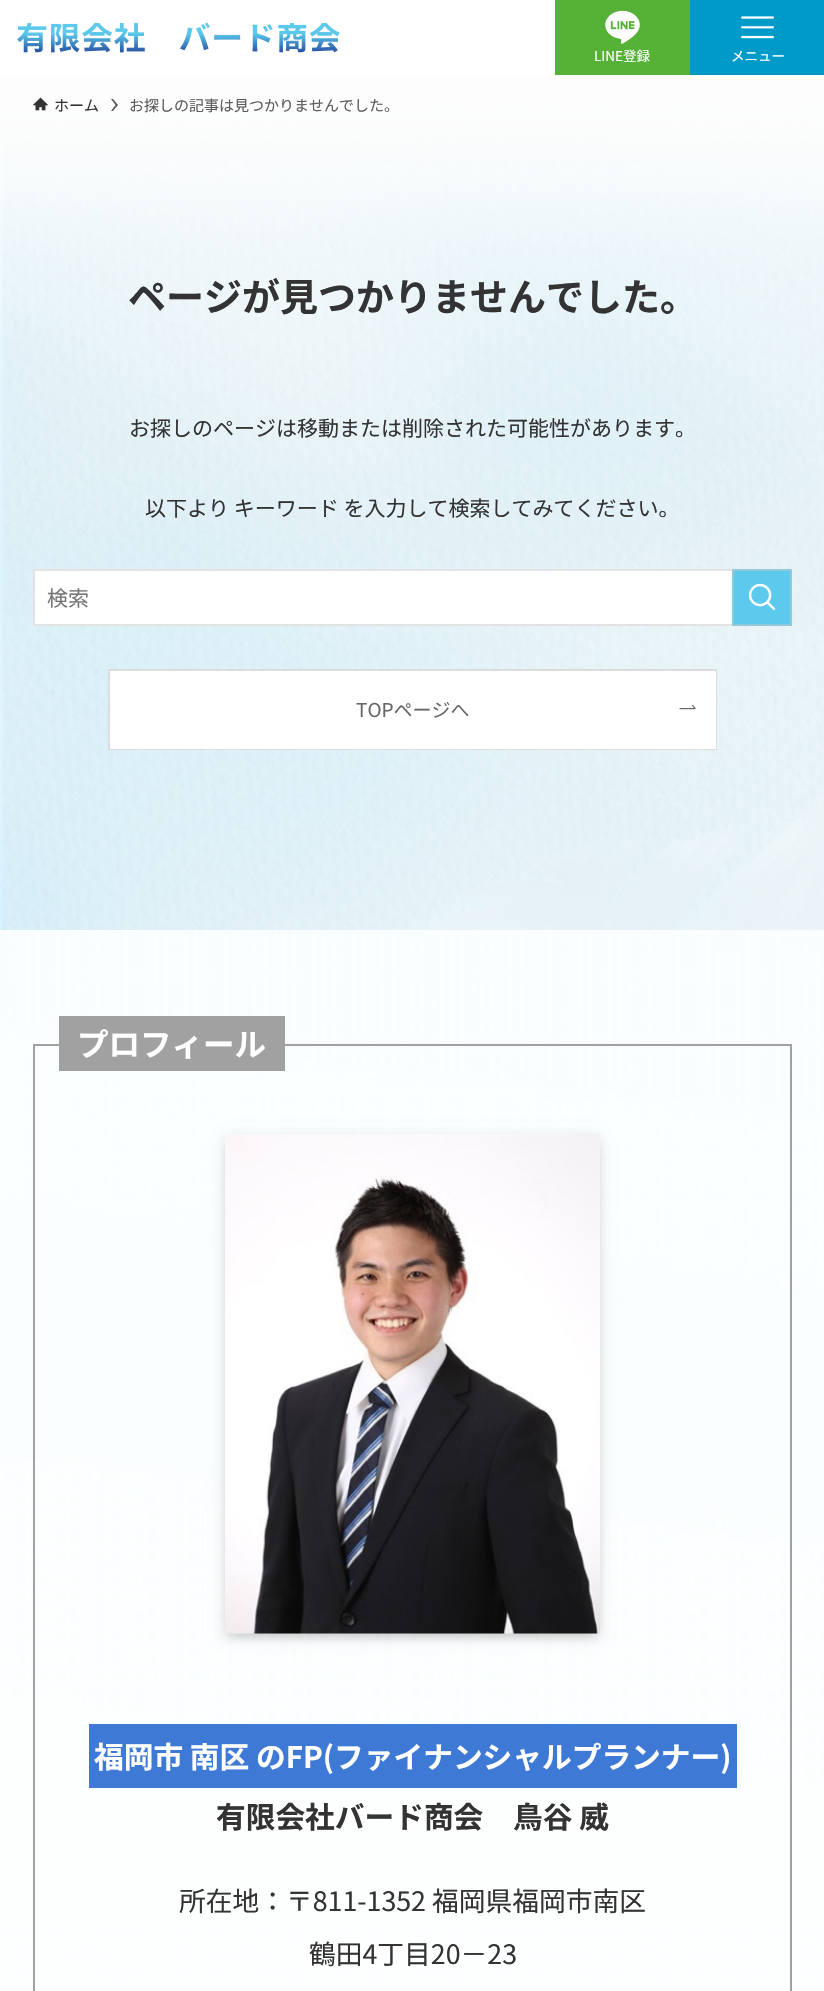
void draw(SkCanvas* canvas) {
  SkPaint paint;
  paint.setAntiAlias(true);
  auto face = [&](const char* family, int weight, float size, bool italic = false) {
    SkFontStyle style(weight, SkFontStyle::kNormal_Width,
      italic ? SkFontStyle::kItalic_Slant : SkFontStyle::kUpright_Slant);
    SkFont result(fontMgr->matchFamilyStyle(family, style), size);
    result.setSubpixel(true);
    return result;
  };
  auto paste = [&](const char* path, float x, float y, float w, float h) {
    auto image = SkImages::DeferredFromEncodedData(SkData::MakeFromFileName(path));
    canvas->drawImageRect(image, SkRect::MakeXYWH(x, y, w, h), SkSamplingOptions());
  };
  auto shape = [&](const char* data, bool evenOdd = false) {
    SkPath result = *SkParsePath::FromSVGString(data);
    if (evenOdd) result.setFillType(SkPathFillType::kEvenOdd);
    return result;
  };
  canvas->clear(0xfffdfdfd);
  paste("img/1.png", 0, 75, 824, 855);
  paste("img/2.png", 0, 0, 555, 75);
  paste("img/3.png", 17, 23, 323, 30);
  paint.setColor(0xff56b237);
  canvas->drawRect(SkRect::MakeXYWH(555, 0, 135, 75), paint);
  paste("img/4.png", 605, 10, 35, 34);
  paint.setColor(0xff009ac9);
  canvas->drawRect(SkRect::MakeXYWH(690, 0, 134, 75), paint);
  paste("img/5.png", 741, 16, 33, 23);
  paste("img/6.png", 33, 97, 15, 14);
  paint.setColor(0xff5b5b5b);
  canvas->drawPath(shape("M113 99H111L115.5 105L111 111H113L118 105Z"), paint);
  paint.setColor(0xffffffff);
  canvas->drawRect(SkRect::MakeXYWH(35, 571, 697, 53), paint);
  paint.setStroke(true);
  paint.setStrokeWidth(2);
  paint.setColor(0xffe3e3e3);
  canvas->drawRect(SkRect::MakeXYWH(34, 570, 757, 55), paint);
  paint.setStroke(false);
  paint.setColor(0xff5ccaec);
  canvas->drawRect(SkRect::MakeXYWH(733, 570, 58, 55), paint);
  paint.setStroke(true);
  paint.setColor(0xff92c9da);
  canvas->drawRect(SkRect::MakeXYWH(733, 570, 58, 55), paint);
  paste("img/7.png", 748, 583, 28, 28);
  paint.setColor(0xffdcdcdc);
  canvas->drawRect(SkRect::MakeXYWH(109, 670, 607, 79), paint);
  paint.setStroke(false);
  paint.setColor(0xffffffff);
  canvas->drawRect(SkRect::MakeXYWH(110, 671, 606, 78), paint);
  paste("img/8.png", 679, 704, 17, 6);
  paste("img/9.png", 0, 930, 824, 1061);
  paint.setStroke(true);
  paint.setColor(0xffa1a1a1);
  canvas->drawRect(SkRect::MakeXYWH(34, 1045, 757, 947), paint);
  paint.setStroke(false);
  canvas->drawRect(SkRect::MakeXYWH(59, 1016, 226, 55), paint);
  paint.setColor(0x1a000000);
  paint.setMaskFilter(SkMaskFilter::MakeBlur(kNormal_SkBlurStyle, 6));
  canvas->drawRect(SkRect::MakeXYWH(225, 1137, 375, 500), paint);
  paint.setMaskFilter(nullptr);
  paint.setColor(0x33000000);
  paint.setMaskFilter(SkMaskFilter::MakeBlur(kNormal_SkBlurStyle, 6));
  canvas->drawRect(SkRect::MakeXYWH(231, 1146, 363, 488), paint);
  paint.setMaskFilter(nullptr);
  paste("img/10.png", 225, 1134, 375, 500);
  paint.setColor(0xff3d79d5);
  canvas->drawRect(SkRect::MakeXYWH(89, 1724, 648, 64), paint);
  auto f0 = face("Noto Sans JP", 400, 13.5f);
  paint.setColor(0xffffffff);
  canvas->drawString("LINE登録", 594, 61, f0, paint);
  canvas->drawString("メニュー", 731, 61, f0, paint);
  auto f1 = face("Noto Sans JP", 400, 15);
  paint.setColor(0xff333333);
  canvas->drawString("ホーム", 54, 111, f1, paint);
  paint.setColor(0xff5b5b5b);
  canvas->drawString("お探しの記事は見つかりませんでした。", 129, 111, f1, paint);
  auto f2 = face("Noto Sans JP", 700, 38);
  paint.setColor(0xff333333);
  canvas->drawString("ページが見つかりませんでした。", 128, 311, f2, paint);
  auto f3 = face("Noto Sans JP", 400, 21);
  canvas->drawString("お探しのページは移動または削除された可能性があります。", 129, 436, f3, paint);
  canvas->drawString("以下より キーワード を入力して検索してみてください。", 145, 516, f3, paint);
  paint.setColor(0xff757575);
  canvas->drawString("検索", 47, 606, f3, paint);
  auto f4 = face("Noto Sans JP", 400, 19);
  paint.setColor(0xff666666);
  canvas->drawString("TOPページへ", 356, 717, f4, paint);
  auto f5 = face("Noto Sans JP", 700, 31.5f);
  paint.setColor(0xffffffff);
  canvas->drawString("プロフィール", 77, 1056, f5, paint);
  auto f6 = face("Noto Sans JP", 700, 29.7f);
  canvas->drawString("福岡市 南区 のFP(ファイナンシャルプランナー)", 94, 1768, f6, paint);
  paint.setColor(0xff333333);
  canvas->drawString("有限会社バード商会　鳥谷 威", 216, 1828, f6, paint);
  auto f7 = face("Noto Sans JP", 400, 26.75f);
  canvas->drawString("所在地：〒811-1352 福岡県福岡市南区", 179, 1911, f7, paint);
  canvas->drawString("鶴田4丁目20－23", 309, 1964, f7, paint);
}
